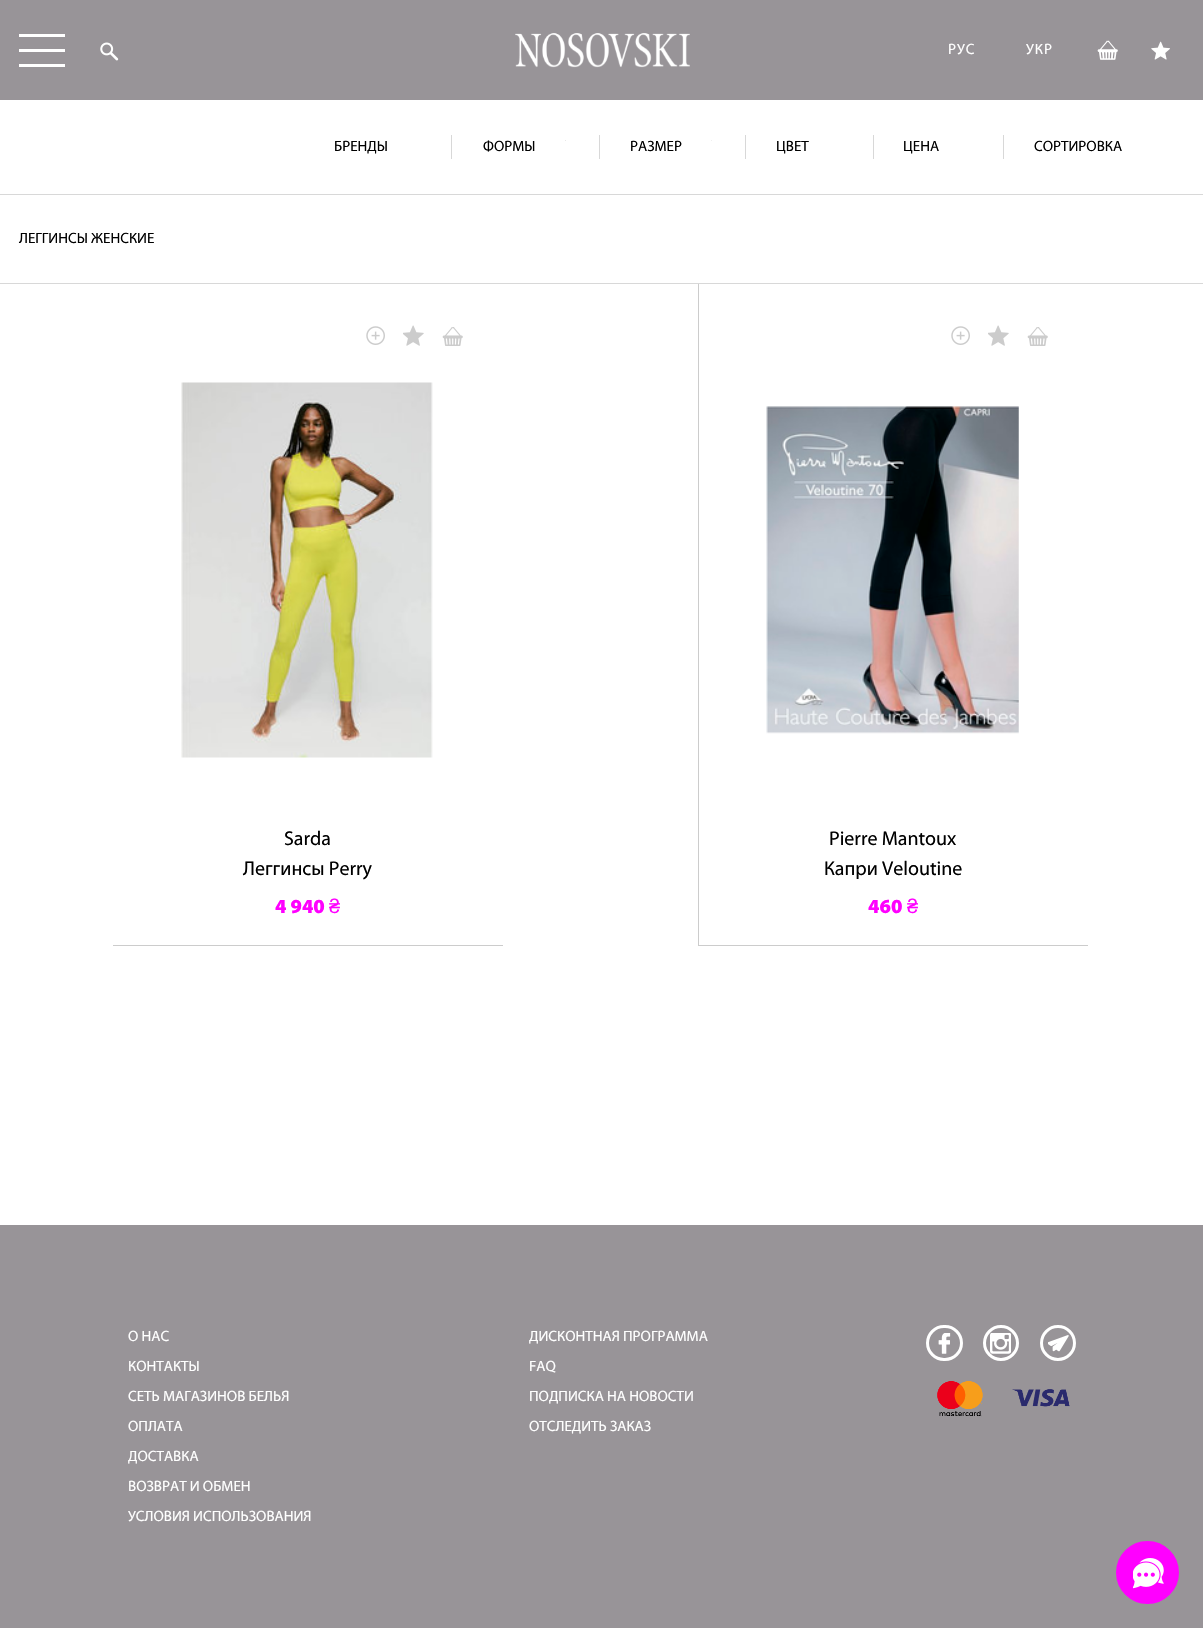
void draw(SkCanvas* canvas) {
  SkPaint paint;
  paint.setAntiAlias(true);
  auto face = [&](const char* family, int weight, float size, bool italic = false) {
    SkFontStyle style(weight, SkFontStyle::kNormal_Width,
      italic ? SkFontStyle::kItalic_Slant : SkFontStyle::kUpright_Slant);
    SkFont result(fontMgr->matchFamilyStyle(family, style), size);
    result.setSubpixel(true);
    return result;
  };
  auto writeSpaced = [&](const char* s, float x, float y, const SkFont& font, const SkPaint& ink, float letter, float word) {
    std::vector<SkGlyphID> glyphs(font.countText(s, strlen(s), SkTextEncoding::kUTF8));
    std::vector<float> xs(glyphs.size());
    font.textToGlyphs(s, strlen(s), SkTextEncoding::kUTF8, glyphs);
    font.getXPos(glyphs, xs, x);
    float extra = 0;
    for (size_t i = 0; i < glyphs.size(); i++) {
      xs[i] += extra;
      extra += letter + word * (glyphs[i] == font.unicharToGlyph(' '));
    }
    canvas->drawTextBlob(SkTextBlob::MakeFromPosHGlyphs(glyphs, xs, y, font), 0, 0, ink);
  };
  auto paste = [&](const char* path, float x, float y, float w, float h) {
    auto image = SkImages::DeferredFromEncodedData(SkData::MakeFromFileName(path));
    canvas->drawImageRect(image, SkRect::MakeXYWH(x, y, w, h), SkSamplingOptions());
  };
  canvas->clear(0xffffffff);
  {
    const struct { float x, y, w, h; SkColor color; } items[] = {
      {0, 0, 1203, 100, 0xff989498},
      {19, 49, 46, 3, 0xffffffff},
      {19, 34, 46, 3, 0xffffffff},
      {19, 64, 46, 3, 0xffffffff},
    };
    for (auto [x, y, w, h, color] : items) {
      paint.setColor(color);
      canvas->drawRect(SkRect::MakeXYWH(x, y, w, h), paint);
    }
  }
  paste("img/1.png", 100, 42, 19, 19);
  paste("img/2.png", 515, 33, 175, 35);
  paste("img/3.png", 1097, 40, 21, 20);
  paste("img/4.png", 1151, 41, 19, 19);
  {
    const struct { float x, y, w, h; SkColor color; } items[] = {
      {0, 194, 1203, 1, 0xffd8d8d8},
      {451, 135, 1, 24, 0xffd8d8d8},
      {599, 135, 1, 24, 0xffd8d8d8},
      {565, 140, 1, 1, 0xffe8e8e8},
      {745, 135, 1, 24, 0xffd8d8d8},
      {711, 140, 1, 1, 0xfff0f0f0},
      {873, 135, 1, 24, 0xffd8d8d8},
      {1003, 135, 1, 24, 0xffd8d8d8},
      {0, 283, 1203, 1, 0xffd8d8d8},
      {113, 945, 390, 1, 0xffcccccc},
    };
    for (auto [x, y, w, h, color] : items) {
      paint.setColor(color);
      canvas->drawRect(SkRect::MakeXYWH(x, y, w, h), paint);
    }
  }
  paste("img/5.png", 366, 326, 19, 19);
  paste("img/6.png", 403, 325, 21, 21);
  paste("img/7.png", 442, 327, 21, 19);
  paste("img/8.png", 181, 382, 252, 376);
  canvas->drawRect(SkRect::MakeXYWH(698, 945, 390, 1), paint);
  canvas->drawRect(SkRect::MakeXYWH(698, 284, 1, 662), paint);
  paste("img/5.png", 951, 326, 19, 19);
  paste("img/6.png", 988, 325, 21, 21);
  paste("img/7.png", 1027, 327, 21, 19);
  paste("img/9.png", 766, 406, 253, 328);
  paint.setColor(0xff989498);
  canvas->drawRect(SkRect::MakeXYWH(0, 1225, 1203, 403), paint);
  paint.setStroke(true);
  paint.setStrokeWidth(3);
  paint.setColor(0xffffffff);
  canvas->drawRoundRect(SkRect::MakeXYWH(927.5f, 1326.5f, 34, 33), 16.5f, 16.5f, paint);
  paste("img/10.png", 938, 1333, 13, 21);
  canvas->drawCircle(1001, 1343, 16.5f, paint);
  paste("img/11.png", 990, 1333, 21, 21);
  canvas->drawCircle(1058, 1343, 16.5f, paint);
  paste("img/12.png", 1048, 1335, 21, 17);
  paste("img/13.png", 937, 1381, 133, 36);
  paint.setStroke(false);
  paint.setColor(0xffff00ff);
  canvas->drawCircle(1147.5f, 1572.5f, 30, paint);
  paint.setStroke(true);
  canvas->drawCircle(1147.5f, 1572.5f, 30, paint);
  paste("img/14.png", 1133, 1558, 31, 31);
  auto f0 = face("Myriad", 400, 15);
  paint.setStroke(false);
  paint.setColor(0xffffffff);
  writeSpaced("РУС", 948, 54, f0, paint, 1, 0);
  writeSpaced("УКР", 1026, 54, f0, paint, 1, 0);
  paint.setColor(0xff000000);
  {
    const struct { const char* s; float x, y; } items[] = {
      {"БРЕНДЫ", 334, 151},
      {"ФОРМЫ", 483, 151},
      {"РАЗМЕР", 630, 151},
      {"ЦВЕТ", 776, 151},
      {"ЦЕНА", 903, 151},
      {"СОРТИРОВКА", 1034, 151},
      {"ЛЕГГИНСЫ ЖЕНСКИЕ", 19, 243},
    };
    for (auto [s, x, y] : items) {
      canvas->drawString(s, x, y, f0, paint);
    }
  }
  auto f1 = face("Myriad", 400, 20);
  canvas->drawString("Sarda", 284, 845, f1, paint);
  canvas->drawString("Леггинсы Perry", 243, 875, f1, paint);
  auto f2 = face("Myriad", 900, 20);
  paint.setColor(0xffff00ff);
  canvas->drawString("4 940", 275, 913, f2, paint);
  auto f3 = face("Liberation Sans", 400, 20);
  canvas->drawString("₴", 329, 913, f3, paint);
  paint.setColor(0xff000000);
  canvas->drawString("Pierre Mantoux", 829, 845, f1, paint);
  canvas->drawString("Капри Veloutine", 824, 875, f1, paint);
  paint.setColor(0xffff00ff);
  canvas->drawString("460", 868, 913, f2, paint);
  canvas->drawString("₴", 907, 913, f3, paint);
  paint.setColor(0xffffffff);
  {
    const struct { const char* s; float x, y; } items[] = {
      {"О НАС", 128, 1341},
      {"КОНТАКТЫ", 128, 1371},
      {"СЕТЬ МАГАЗИНОВ БЕЛЬЯ", 128, 1401},
      {"ОПЛАТА", 128, 1431},
      {"ДОСТАВКА", 128, 1461},
      {"ВОЗВРАТ И ОБМЕН", 128, 1491},
      {"УСЛОВИЯ ИСПОЛЬЗОВАНИЯ", 128, 1521},
      {"ДИСКОНТНАЯ ПРОГРАММА", 529, 1341},
      {"FAQ", 529, 1371},
      {"ПОДПИСКА НА НОВОСТИ", 529, 1401},
      {"ОТСЛЕДИТЬ ЗАКАЗ", 529, 1431},
    };
    for (auto [s, x, y] : items) {
      canvas->drawString(s, x, y, f0, paint);
    }
  }
}
